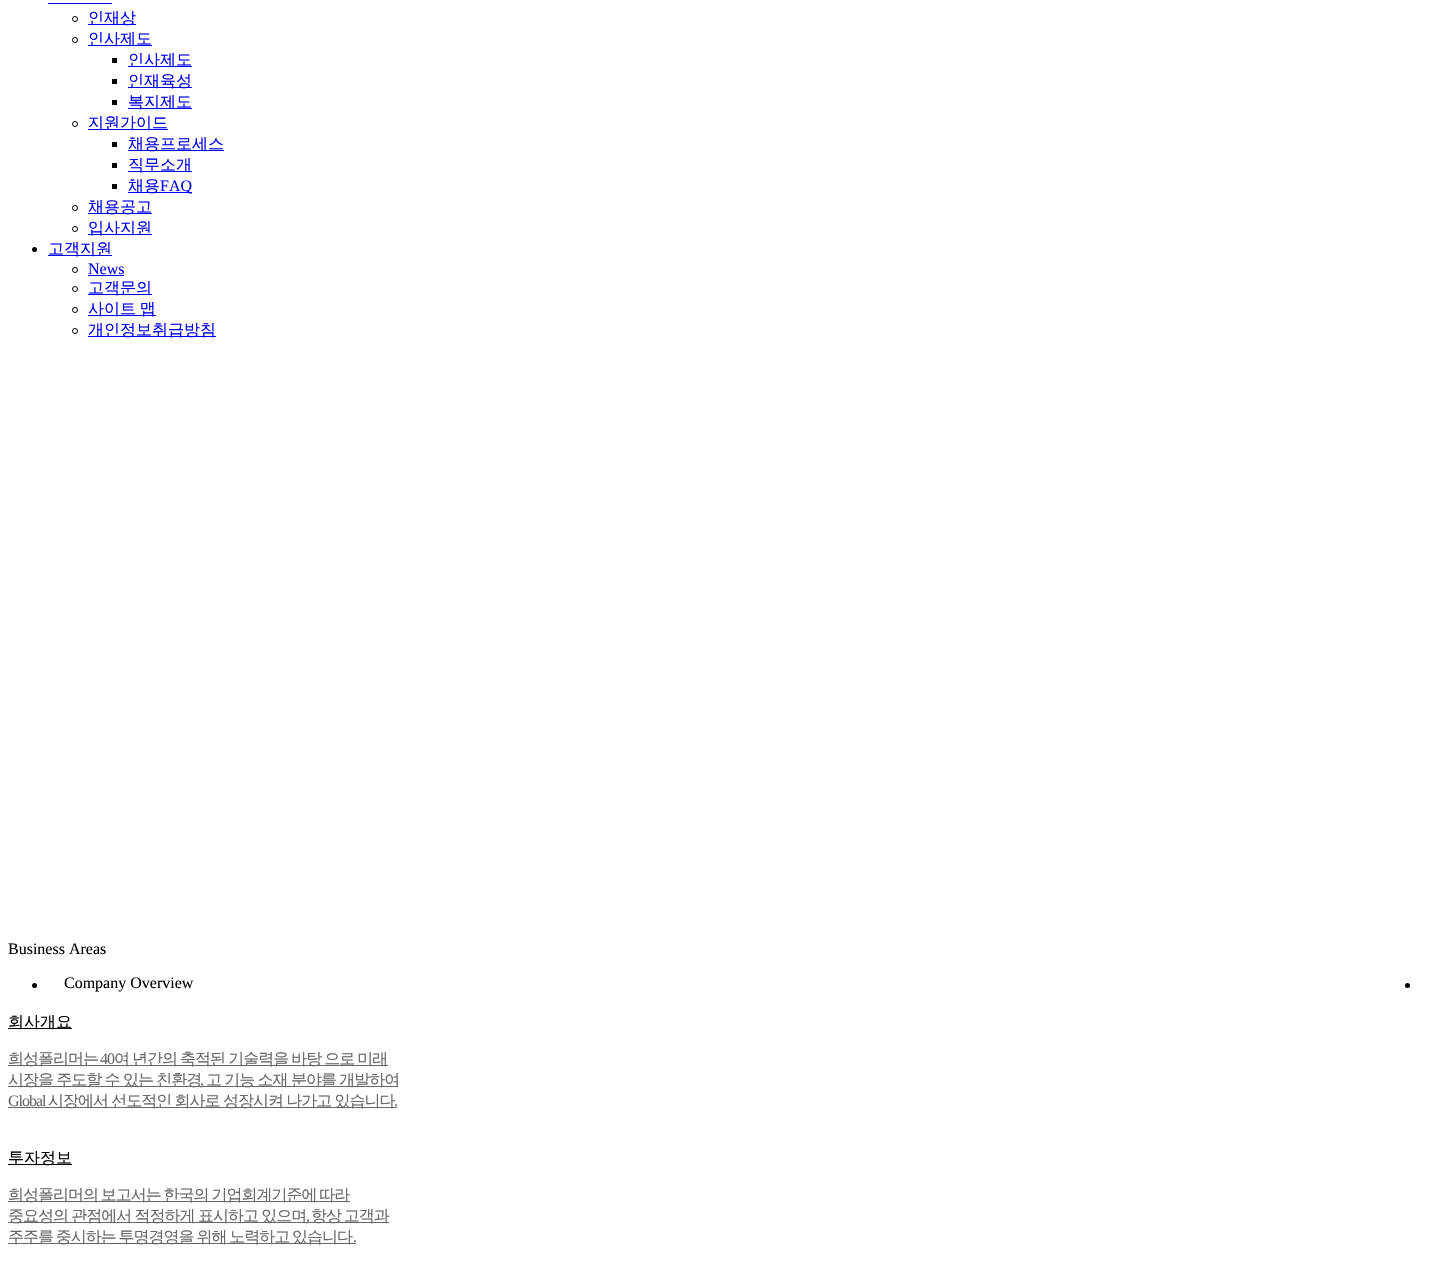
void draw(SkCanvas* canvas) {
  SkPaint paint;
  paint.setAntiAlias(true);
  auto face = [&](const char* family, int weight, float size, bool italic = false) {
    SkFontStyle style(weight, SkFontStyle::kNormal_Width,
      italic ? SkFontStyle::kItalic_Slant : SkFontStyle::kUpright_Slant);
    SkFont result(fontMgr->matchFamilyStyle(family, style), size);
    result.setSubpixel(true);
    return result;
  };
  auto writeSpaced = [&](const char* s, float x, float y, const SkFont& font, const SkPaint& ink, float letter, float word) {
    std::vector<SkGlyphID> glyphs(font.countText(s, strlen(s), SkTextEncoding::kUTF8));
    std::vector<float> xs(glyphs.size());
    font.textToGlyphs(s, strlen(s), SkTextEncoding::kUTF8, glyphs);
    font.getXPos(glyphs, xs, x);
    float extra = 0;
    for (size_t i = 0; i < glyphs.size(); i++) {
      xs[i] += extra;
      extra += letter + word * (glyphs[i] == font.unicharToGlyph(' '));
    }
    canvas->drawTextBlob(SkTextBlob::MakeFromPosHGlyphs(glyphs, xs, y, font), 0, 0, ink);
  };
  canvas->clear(0xffffffff);
  paint.setColor(0xff0000ee);
  canvas->drawRect(SkRect::MakeXYWH(48, 3, 64, 1), paint);
  paint.setStroke(true);
  paint.setStrokeWidth(1);
  paint.setColor(0xff000000);
  canvas->drawCircle(75, 19, 2.5f, paint);
  paint.setStroke(false);
  paint.setColor(0xff0000ee);
  canvas->drawRect(SkRect::MakeXYWH(88, 24, 48, 1), paint);
  paint.setStroke(true);
  paint.setColor(0xff000000);
  canvas->drawCircle(75, 40, 2.5f, paint);
  paint.setStroke(false);
  {
    const struct { float x, y, w, h; SkColor color; } items[] = {
      {88, 45, 64, 1, 0xff0000ee},
      {112, 58, 5, 5, 0xff000000},
      {128, 66, 64, 1, 0xff0000ee},
      {112, 79, 5, 5, 0xff000000},
      {128, 87, 64, 1, 0xff0000ee},
      {112, 100, 5, 5, 0xff000000},
      {128, 108, 64, 1, 0xff0000ee},
    };
    for (auto [x, y, w, h, color] : items) {
      paint.setColor(color);
      canvas->drawRect(SkRect::MakeXYWH(x, y, w, h), paint);
    }
  }
  paint.setStroke(true);
  paint.setColor(0xff000000);
  canvas->drawCircle(75, 124, 2.5f, paint);
  paint.setStroke(false);
  {
    const struct { float x, y, w, h; SkColor color; } items[] = {
      {88, 129, 80, 1, 0xff0000ee},
      {112, 142, 5, 5, 0xff000000},
      {128, 150, 96, 1, 0xff0000ee},
      {112, 163, 5, 5, 0xff000000},
      {128, 171, 64, 1, 0xff0000ee},
      {112, 184, 5, 5, 0xff000000},
      {128, 192, 64, 1, 0xff0000ee},
    };
    for (auto [x, y, w, h, color] : items) {
      paint.setColor(color);
      canvas->drawRect(SkRect::MakeXYWH(x, y, w, h), paint);
    }
  }
  paint.setStroke(true);
  paint.setColor(0xff000000);
  canvas->drawCircle(75, 208, 2.5f, paint);
  paint.setStroke(false);
  paint.setColor(0xff0000ee);
  canvas->drawRect(SkRect::MakeXYWH(88, 213, 64, 1), paint);
  paint.setStroke(true);
  paint.setColor(0xff000000);
  canvas->drawCircle(75, 229, 2.5f, paint);
  paint.setStroke(false);
  paint.setColor(0xff0000ee);
  canvas->drawRect(SkRect::MakeXYWH(88, 234, 64, 1), paint);
  paint.setColor(0xff000000);
  canvas->drawCircle(34.5f, 249.5f, 2.5f, paint);
  paint.setColor(0xff0000ee);
  canvas->drawRect(SkRect::MakeXYWH(48, 255, 64, 1), paint);
  paint.setStroke(true);
  paint.setColor(0xff000000);
  canvas->drawCircle(75, 270, 2.5f, paint);
  paint.setStroke(false);
  paint.setColor(0xff0000ee);
  canvas->drawRect(SkRect::MakeXYWH(88, 275, 36, 1), paint);
  paint.setStroke(true);
  paint.setColor(0xff000000);
  canvas->drawCircle(75, 289, 2.5f, paint);
  paint.setStroke(false);
  paint.setColor(0xff0000ee);
  canvas->drawRect(SkRect::MakeXYWH(88, 294, 64, 1), paint);
  paint.setStroke(true);
  paint.setColor(0xff000000);
  canvas->drawCircle(75, 310, 2.5f, paint);
  paint.setStroke(false);
  paint.setColor(0xff0000ee);
  canvas->drawRect(SkRect::MakeXYWH(88, 315, 68, 1), paint);
  paint.setStroke(true);
  paint.setColor(0xff000000);
  canvas->drawCircle(75, 331, 2.5f, paint);
  paint.setStroke(false);
  paint.setColor(0xff0000ee);
  canvas->drawRect(SkRect::MakeXYWH(88, 336, 128, 1), paint);
  paint.setColor(0xff000000);
  canvas->drawCircle(34.5f, 985.5f, 2.5f, paint);
  canvas->drawCircle(1407.5f, 985.5f, 2.5f, paint);
  {
    const struct { float x, y, w, h; SkColor color; } items[] = {
      {8, 1028, 64, 1, 0xff000000},
      {8, 1065, 380, 1, 0xff676767},
      {8, 1086, 390, 1, 0xff676767},
      {8, 1107, 389, 1, 0xff676767},
      {8, 1164, 64, 1, 0xff000000},
      {8, 1201, 342, 1, 0xff676767},
      {8, 1222, 381, 1, 0xff676767},
      {8, 1243, 348, 1, 0xff676767},
    };
    for (auto [x, y, w, h, color] : items) {
      paint.setColor(color);
      canvas->drawRect(SkRect::MakeXYWH(x, y, w, h), paint);
    }
  }
  auto f0 = face("WenQuanYi Zen Hei", 500, 16);
  paint.setColor(0xff0000ee);
  {
    const struct { const char* s; float x, y; } items[] = {
      {"인재상", 88, 23},
      {"인사제도", 88, 44},
      {"인사제도", 128, 65},
      {"인재육성", 128, 86},
      {"복지제도", 128, 107},
      {"지원가이드", 88, 128},
      {"채용프로세스", 128, 149},
      {"직무소개", 128, 170},
      {"채용", 128, 191},
    };
    for (auto [s, x, y] : items) {
      canvas->drawString(s, x, y, f0, paint);
    }
  }
  auto f1 = face("Liberation Serif", 400, 16);
  canvas->drawString("FAQ", 160, 191, f1, paint);
  {
    const struct { const char* s; float x, y; } items[] = {
      {"채용공고", 88, 212},
      {"입사지원", 88, 233},
      {"고객지원", 48, 254},
    };
    for (auto [s, x, y] : items) {
      canvas->drawString(s, x, y, f0, paint);
    }
  }
  canvas->drawString("News", 88, 274, f1, paint);
  canvas->drawString("고객문의", 88, 293, f0, paint);
  writeSpaced("사이트 맵", 88, 314, f0, paint, 0, -1);
  canvas->drawString("개인정보취급방침", 88, 335, f0, paint);
  paint.setColor(0xff000000);
  canvas->drawString("Business Areas", 8, 954, f1, paint);
  canvas->drawString("Company Overview", 64, 988, f1, paint);
  canvas->drawString("회사개요", 8, 1027, f0, paint);
  paint.setColor(0xff676767);
  writeSpaced("희성폴리머는", 8, 1064, f0, paint, -1, 0);
  writeSpaced("40", 100, 1064, f1, paint, -1, 0);
  writeSpaced("여 년간의 축적된 기술력을 바탕 으로 미래", 114, 1064, f0, paint, -1, -0.75f);
  writeSpaced("시장을 주도할 수 있는 친환경", 8, 1085, f0, paint, -1, -0.5f);
  writeSpaced(",", 200, 1085, f1, paint, -1, 0);
  writeSpaced("고 기능 소재 분야를 개발하여", 206, 1085, f0, paint, -1, -0.5f);
  writeSpaced("Global", 8, 1106, f1, paint, -1, 0);
  writeSpaced("시장에서 선도적인 회사로 성장시켜 나가고 있습니다", 48, 1106, f0, paint, -1, -0.5f);
  writeSpaced(".", 394, 1106, f1, paint, -1, 0);
  paint.setColor(0xff000000);
  canvas->drawString("투자정보", 8, 1163, f0, paint);
  paint.setColor(0xff676767);
  writeSpaced("희성폴리머의 보고서는 한국의 기업회계기준에 따라", 8, 1200, f0, paint, -1, -1);
  writeSpaced("중요성의 관점에서 적정하게 표시하고 있으며", 8, 1221, f0, paint, -1, -0.5f);
  writeSpaced(",", 306, 1221, f1, paint, -1, 0);
  writeSpaced("항상 고객과", 311, 1221, f0, paint, -1, -1);
  writeSpaced("주주를 중시하는 투명경영을 위해 노력하고 있습니다", 8, 1242, f0, paint, -1, -1);
  writeSpaced(".", 353, 1242, f1, paint, -1, 0);
}
